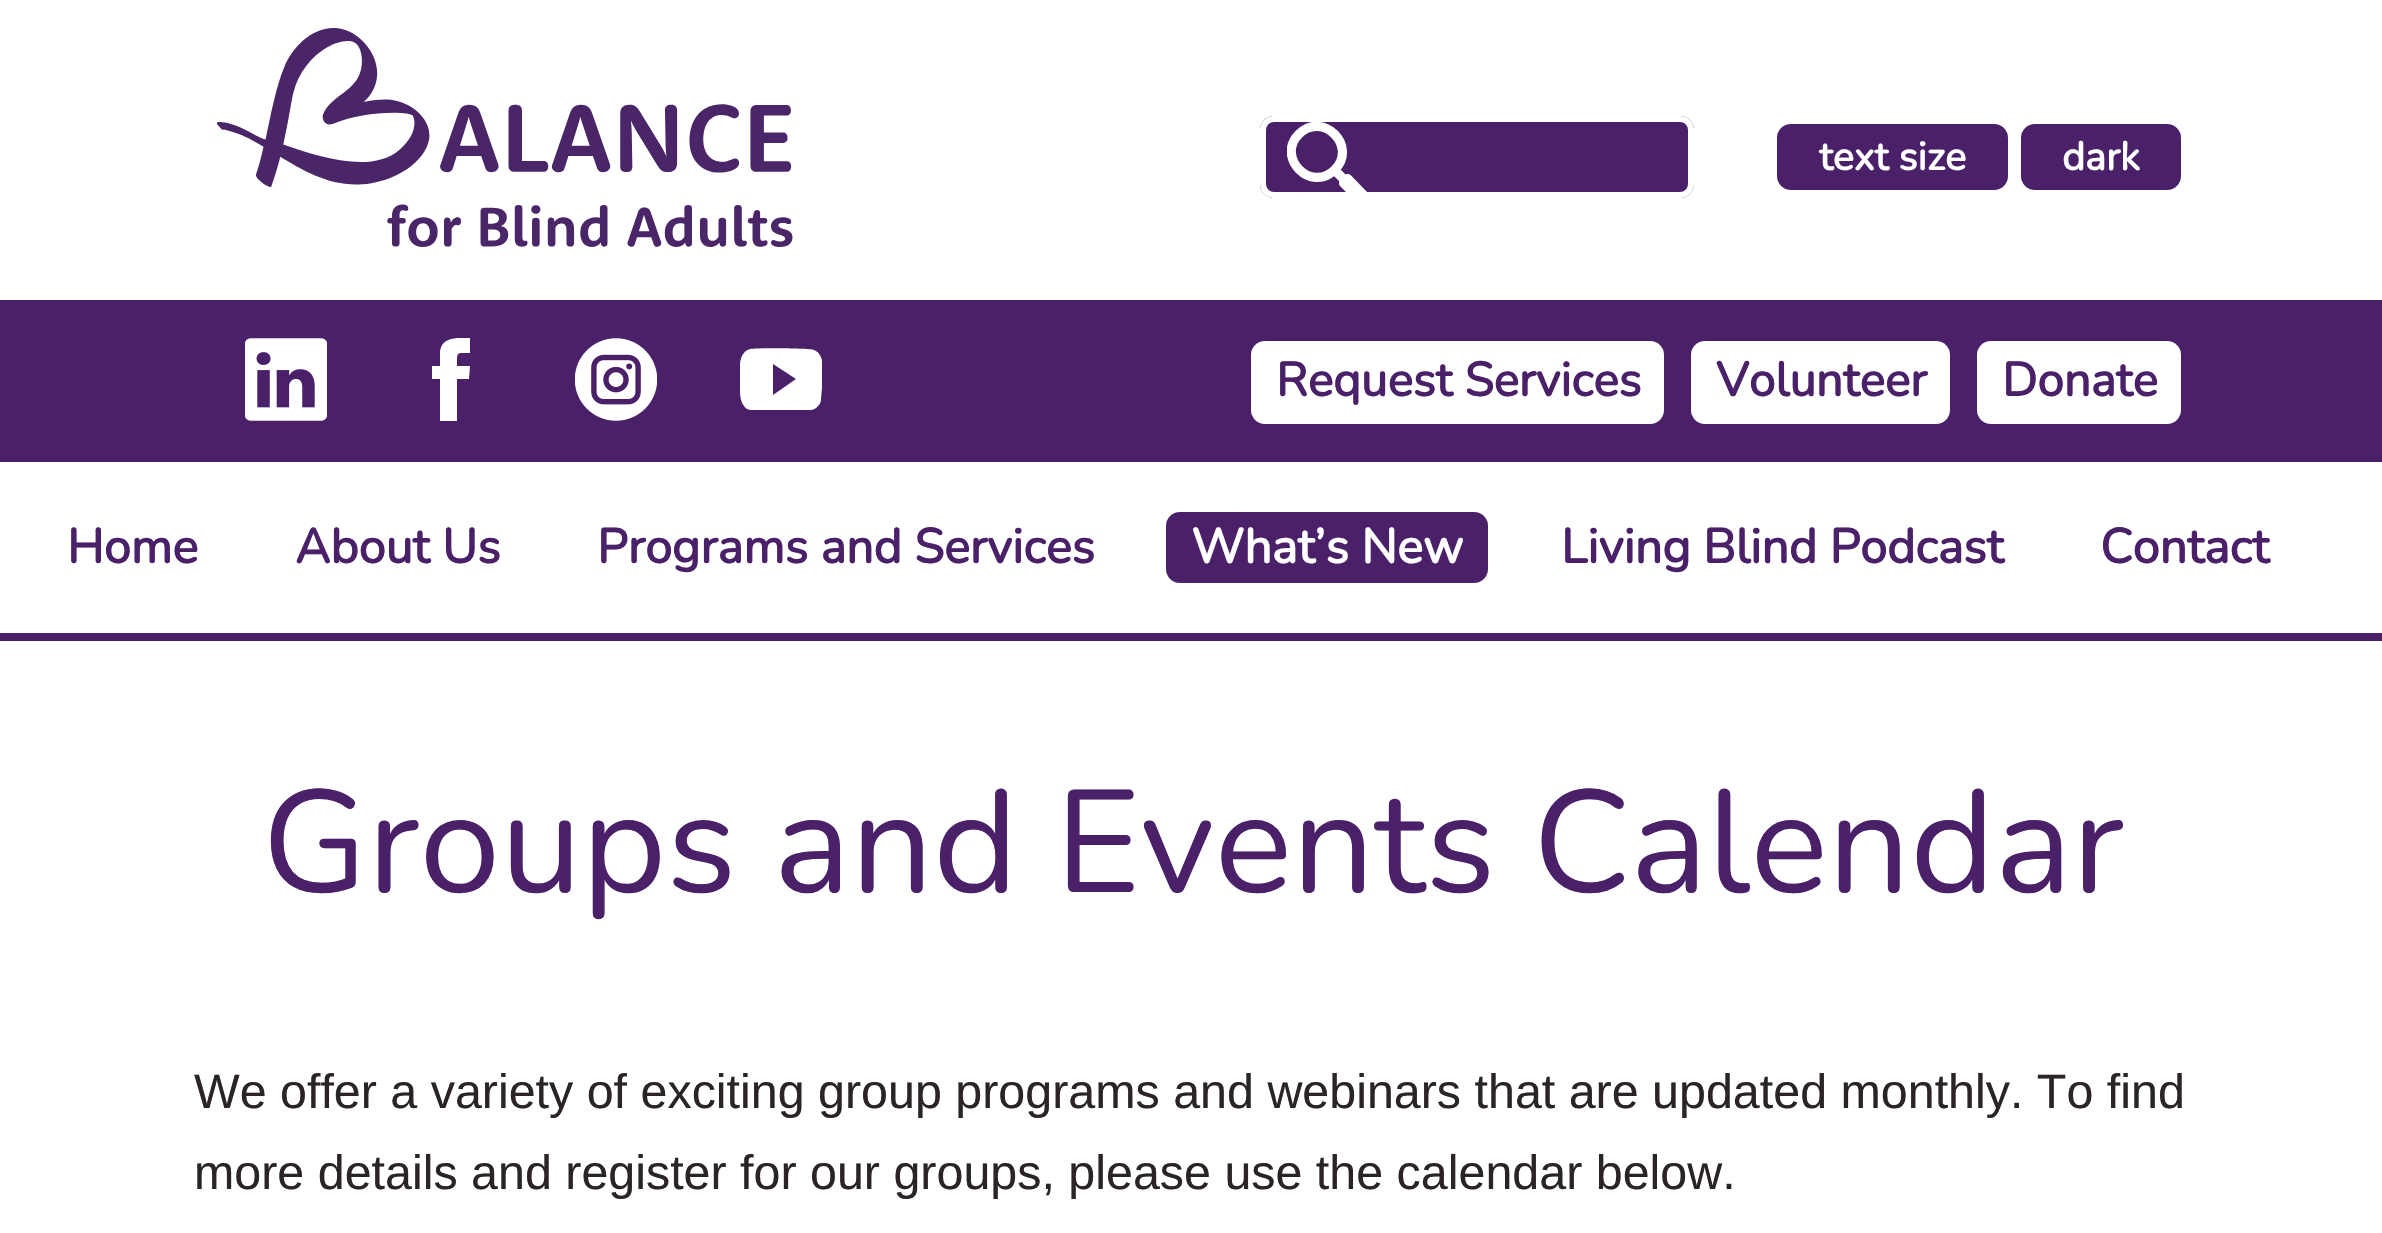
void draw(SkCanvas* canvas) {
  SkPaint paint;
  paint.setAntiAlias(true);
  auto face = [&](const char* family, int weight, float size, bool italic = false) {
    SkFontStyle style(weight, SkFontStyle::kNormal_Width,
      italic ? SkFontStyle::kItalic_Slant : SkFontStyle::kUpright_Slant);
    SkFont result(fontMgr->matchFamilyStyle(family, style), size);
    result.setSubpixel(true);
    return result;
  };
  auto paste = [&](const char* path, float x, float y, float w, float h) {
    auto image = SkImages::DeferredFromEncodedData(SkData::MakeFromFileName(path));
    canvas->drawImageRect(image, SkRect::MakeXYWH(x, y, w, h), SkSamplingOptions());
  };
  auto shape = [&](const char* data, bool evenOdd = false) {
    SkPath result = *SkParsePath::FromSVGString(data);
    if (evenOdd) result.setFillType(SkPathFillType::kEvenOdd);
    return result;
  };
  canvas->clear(0xffffffff);
  paste("img/1.png", 216, 28, 577, 219);
  paint.setColor(0xff4a2169);
  canvas->drawRoundRect(SkRect::MakeXYWH(1260, 116, 434, 82), 14, 14, paint);
  canvas->save();
  canvas->clipPath(shape("M1274 116H1680C1687.5 116 1694 122.5 1694 130V184C1694 191.5 1687.5 198 1680 198H1274C1266.5 198 1260 191.5 1260 184V130C1260 122.5 1266.5 116 1274 116Z"), true);
  canvas->clipRect(SkRect::MakeXYWH(1287, 102, 165, 110));
  paint.setStroke(true);
  paint.setStrokeWidth(9.2f);
  paint.setStrokeCap(SkPaint::kRound_Cap);
  paint.setColor(0xffffffff);
  canvas->drawPath(shape("M1335 169.5C1358 146 1322.5 110.5 1299 134C1275.5 157.5 1311 193 1334.5 170L1362.5 198M1347.5 178.5L1365.5 197L1361.5 201L1343.5 183"), paint);
  canvas->restore();
  paint.setStrokeWidth(6);
  paint.setStrokeCap(SkPaint::kButt_Cap);
  canvas->drawRoundRect(SkRect::MakeXYWH(1263, 119, 428, 76), 11, 11, paint);
  paint.setStroke(false);
  paint.setColor(0xff4a2169);
  canvas->drawRoundRect(SkRect::MakeXYWH(1780, 127, 225, 60), 11, 11, paint);
  paint.setStroke(true);
  canvas->drawRoundRect(SkRect::MakeXYWH(1780, 127, 225, 60), 11, 11, paint);
  paint.setStroke(false);
  canvas->drawRoundRect(SkRect::MakeXYWH(2024, 127, 154, 60), 11, 11, paint);
  paint.setStroke(true);
  canvas->drawRoundRect(SkRect::MakeXYWH(2024, 127, 154, 60), 11, 11, paint);
  paint.setStroke(false);
  canvas->drawRect(SkRect::MakeXYWH(0, 300, 2382, 162), paint);
  paste("img/2.png", 245, 338, 82, 83);
  canvas->save();
  canvas->clipRect(SkRect::MakeXYWH(410, 338, 82, 83));
  paint.setColor(0xffffffff);
  canvas->drawPath(shape("M440 354V366H432V379H440V421H457V379H469L470 366H457C457 351 456 353 470 353V338C458 338 440 336 440 354Z"), paint);
  canvas->restore();
  paste("img/3.png", 575, 338, 82, 83);
  canvas->save();
  canvas->clipRect(SkRect::MakeXYWH(740, 338, 82, 83));
  canvas->drawPath(shape("M822 362C822 357 819 352 814 350C809 348 756 348 750 349C747 350 745 351 744 353C738 359 740 374 740 382C740 389 739 400 744 406C745 408 747 409 750 410H766H799H812C814 409 817 408 818 406C820 404 821 402 821 399L822 388ZM773 395V364L796 379Z"), paint);
  canvas->restore();
  canvas->drawRoundRect(SkRect::MakeXYWH(1251, 341, 413, 83), 14, 14, paint);
  canvas->drawRoundRect(SkRect::MakeXYWH(1691, 341, 259, 83), 14, 14, paint);
  canvas->drawRoundRect(SkRect::MakeXYWH(1977, 341, 204, 83), 14, 14, paint);
  paint.setColor(0xff4a2169);
  canvas->drawRect(SkRect::MakeXYWH(0, 633, 2382, 8), paint);
  canvas->drawRoundRect(SkRect::MakeXYWH(1166, 512, 322, 71), 14, 14, paint);
  auto f0 = face("Nunito", 700, 39.5f);
  paint.setColor(0xffffffff);
  canvas->drawString("text size", 1819, 170, f0, paint);
  canvas->drawString("dark", 2062, 170, f0, paint);
  auto f1 = face("Nunito", 700, 47.5f);
  paint.setColor(0xff4a2169);
  {
    const struct { const char* s; float x, y; } items[] = {
      {"Request Services", 1276, 396},
      {"Volunteer", 1716, 396},
      {"Donate", 2002, 396},
    };
    for (auto [s, x, y] : items) {
      canvas->drawString(s, x, y, f1, paint);
    }
  }
  auto f2 = face("Nunito", 700, 48.4f);
  {
    const struct { const char* s; float x, y; } items[] = {
      {"Home", 67, 563},
      {"About Us", 295, 563},
      {"Programs and Services", 597, 563},
    };
    for (auto [s, x, y] : items) {
      canvas->drawString(s, x, y, f2, paint);
    }
  }
  paint.setColor(0xffffffff);
  canvas->drawString("What’s New", 1191, 563, f2, paint);
  paint.setColor(0xff4a2169);
  canvas->drawString("Living Blind Podcast", 1561, 563, f2, paint);
  canvas->drawString("Contact", 2100, 563, f2, paint);
  auto f3 = face("Nunito", 200, 145.25f);
  canvas->drawString("Groups and Events Calendar", 262, 892, f3, paint);
  auto f4 = face("Liberation Sans", 400, 48.4f);
  paint.setColor(0xff2a2426);
  canvas->drawString("We offer a variety of exciting group programs and webinars that are updated monthly. To find", 194, 1108, f4, paint);
  canvas->drawString("more details and register for our groups, please use the calendar below.", 194, 1189, f4, paint);
}
